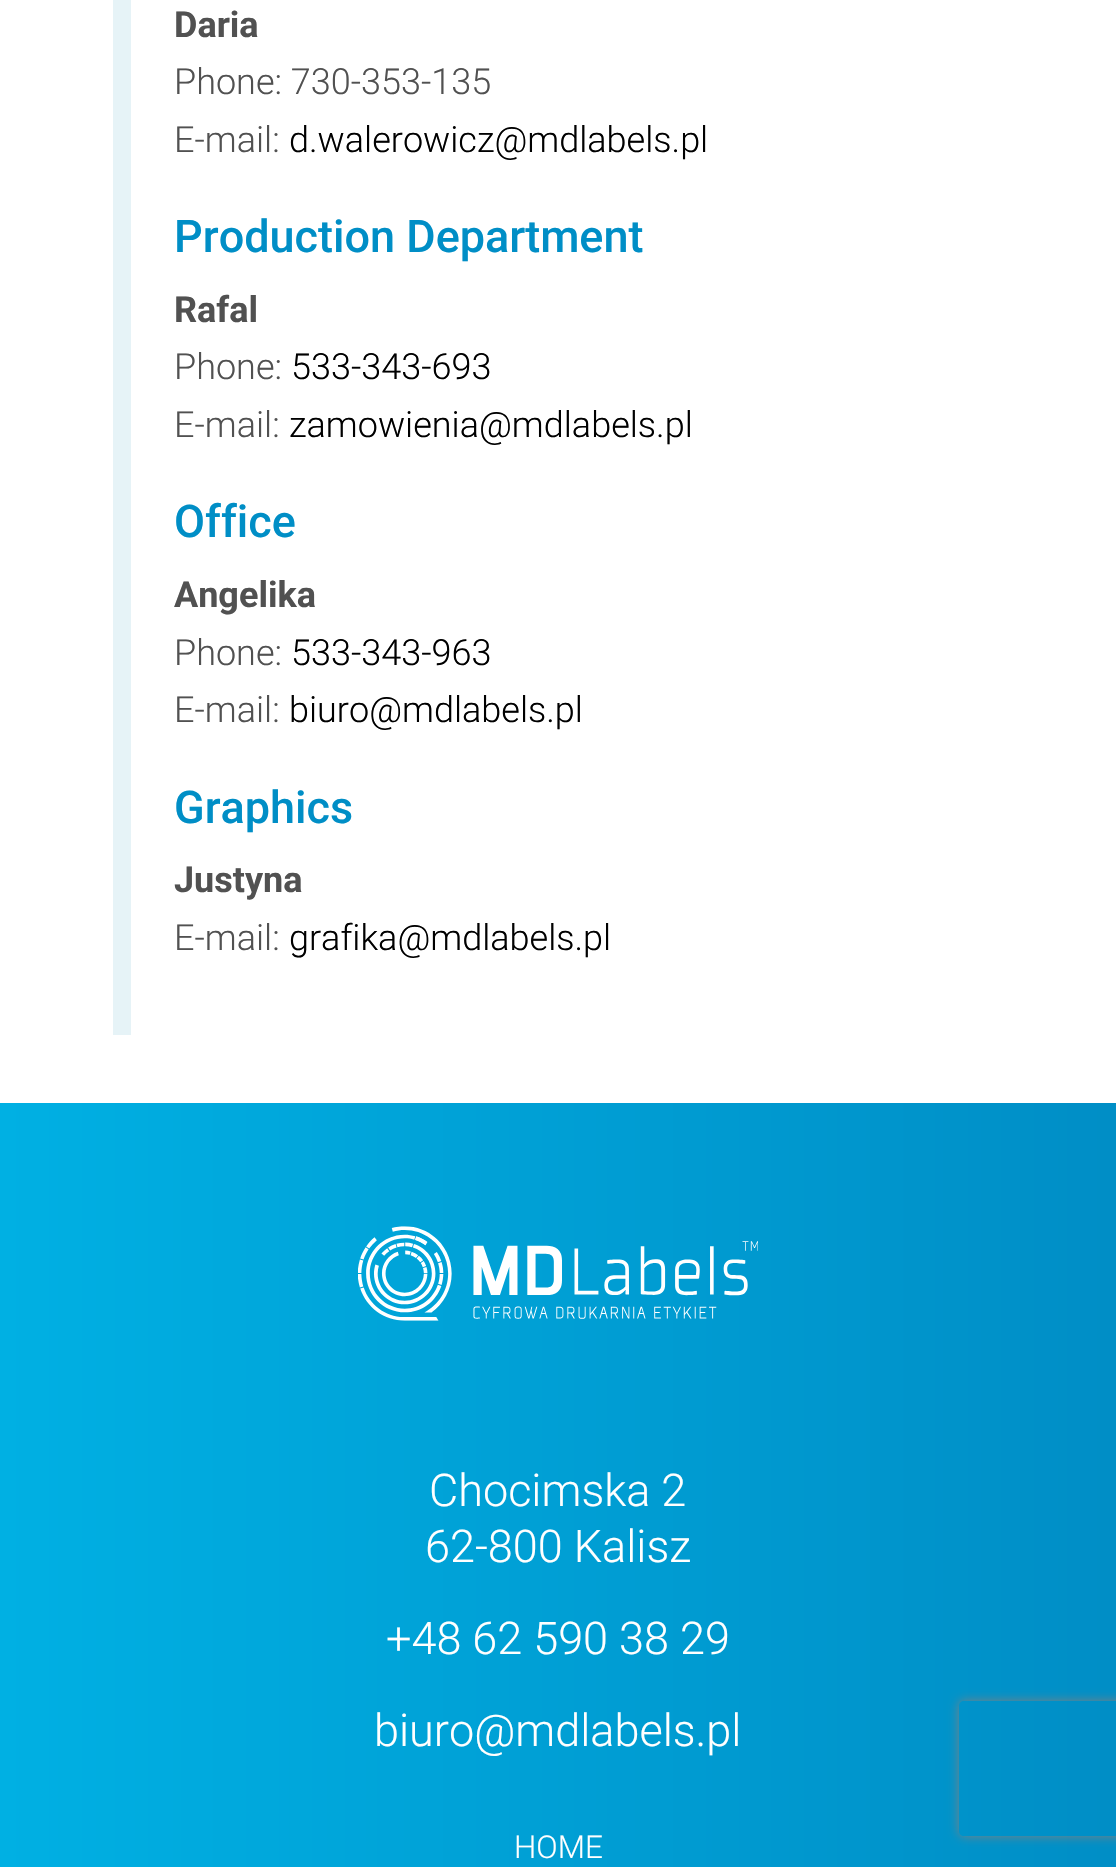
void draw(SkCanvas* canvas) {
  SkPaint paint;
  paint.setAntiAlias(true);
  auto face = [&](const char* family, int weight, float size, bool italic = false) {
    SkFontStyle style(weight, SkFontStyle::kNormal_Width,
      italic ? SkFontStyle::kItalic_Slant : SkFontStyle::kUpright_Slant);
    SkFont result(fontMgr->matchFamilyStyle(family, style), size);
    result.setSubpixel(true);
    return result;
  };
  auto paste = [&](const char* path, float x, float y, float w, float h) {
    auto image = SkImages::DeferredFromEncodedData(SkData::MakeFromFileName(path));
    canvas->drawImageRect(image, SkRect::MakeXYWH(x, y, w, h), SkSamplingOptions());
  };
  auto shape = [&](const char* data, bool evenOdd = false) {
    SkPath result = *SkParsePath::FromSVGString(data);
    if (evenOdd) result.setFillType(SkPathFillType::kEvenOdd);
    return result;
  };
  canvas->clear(0xffffffff);
  paint.setColor(0xffe6f3f7);
  canvas->drawRect(SkRect::MakeXYWH(113, 0, 18, 1035), paint);
  {
    const SkColor colors[] = {0xff00b0e3, 0xff008ec6};
    const float stops[] = {0, 1};
    const SkPoint ends[] = {{0, 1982}, {1116, 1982}};
    paint.setShader(SkGradientShader::MakeLinear(ends, colors, stops, 2, SkTileMode::kClamp));
    paint.setAlpha(255);
  }
  canvas->drawRect(SkRect::MakeXYWH(0, 1103, 1116, 764), paint);
  paste("img/1.png", 358, 1226, 400, 95);
  canvas->save();
  canvas->clipPath(shape("M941 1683H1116V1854H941ZM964 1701H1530C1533 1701 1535 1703 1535 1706V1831C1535 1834 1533 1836 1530 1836H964C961 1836 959 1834 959 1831V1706C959 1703 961 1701 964 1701Z", true), true);
  paint.setShader(nullptr);
  paint.setColor(0xff808080);
  paint.setMaskFilter(SkMaskFilter::MakeBlur(kNormal_SkBlurStyle, 5.5f));
  canvas->drawRoundRect(SkRect::MakeXYWH(959, 1701, 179, 135), 5, 5, paint);
  paint.setMaskFilter(nullptr);
  canvas->restore();
  auto f0 = face("Roboto", 700, 36);
  paint.setColor(0xff515151);
  canvas->drawString("Daria", 174, 37, f0, paint);
  auto f1 = face("Roboto", 300, 36);
  canvas->drawString("Phone: 730-353-135", 174, 94, f1, paint);
  canvas->drawString("E-mail:", 174, 152, f1, paint);
  paint.setColor(0xff000000);
  canvas->drawString("d.walerowicz@mdlabels.pl", 289, 152, f1, paint);
  auto f2 = face("Roboto", 500, 45);
  paint.setColor(0xff008ec6);
  canvas->drawString("Production Department", 174, 252, f2, paint);
  paint.setColor(0xff515151);
  canvas->drawString("Rafal", 174, 322, f0, paint);
  canvas->drawString("Phone:", 174, 379, f1, paint);
  paint.setColor(0xff000000);
  canvas->drawString("533-343-693", 291, 379, f1, paint);
  paint.setColor(0xff515151);
  canvas->drawString("E-mail:", 174, 437, f1, paint);
  paint.setColor(0xff000000);
  canvas->drawString("zamowienia@mdlabels.pl", 289, 437, f1, paint);
  paint.setColor(0xff008ec6);
  canvas->drawString("Office", 174, 537, f2, paint);
  paint.setColor(0xff515151);
  canvas->drawString("Angelika", 174, 607, f0, paint);
  canvas->drawString("Phone:", 174, 665, f1, paint);
  paint.setColor(0xff000000);
  canvas->drawString("533-343-963", 291, 665, f1, paint);
  paint.setColor(0xff515151);
  canvas->drawString("E-mail:", 174, 722, f1, paint);
  paint.setColor(0xff000000);
  canvas->drawString("biuro@mdlabels.pl", 289, 722, f1, paint);
  paint.setColor(0xff008ec6);
  canvas->drawString("Graphics", 174, 823, f2, paint);
  paint.setColor(0xff515151);
  canvas->drawString("Justyna", 174, 892, f0, paint);
  canvas->drawString("E-mail:", 174, 950, f1, paint);
  paint.setColor(0xff000000);
  canvas->drawString("grafika@mdlabels.pl", 289, 950, f1, paint);
  auto f3 = face("Roboto", 300, 45);
  paint.setColor(0xffffffff);
  {
    const struct { const char* s; float x, y; } items[] = {
      {"Chocimska 2", 429, 1506},
      {"62-800 Kalisz", 425, 1562},
      {"+48 62 590 38 29", 386, 1654},
      {"biuro@mdlabels.pl", 374, 1746},
    };
    for (auto [s, x, y] : items) {
      canvas->drawString(s, x, y, f3, paint);
    }
  }
  auto f4 = face("Roboto", 300, 31.5f);
  canvas->drawString("HOME", 514, 1858, f4, paint);
}
